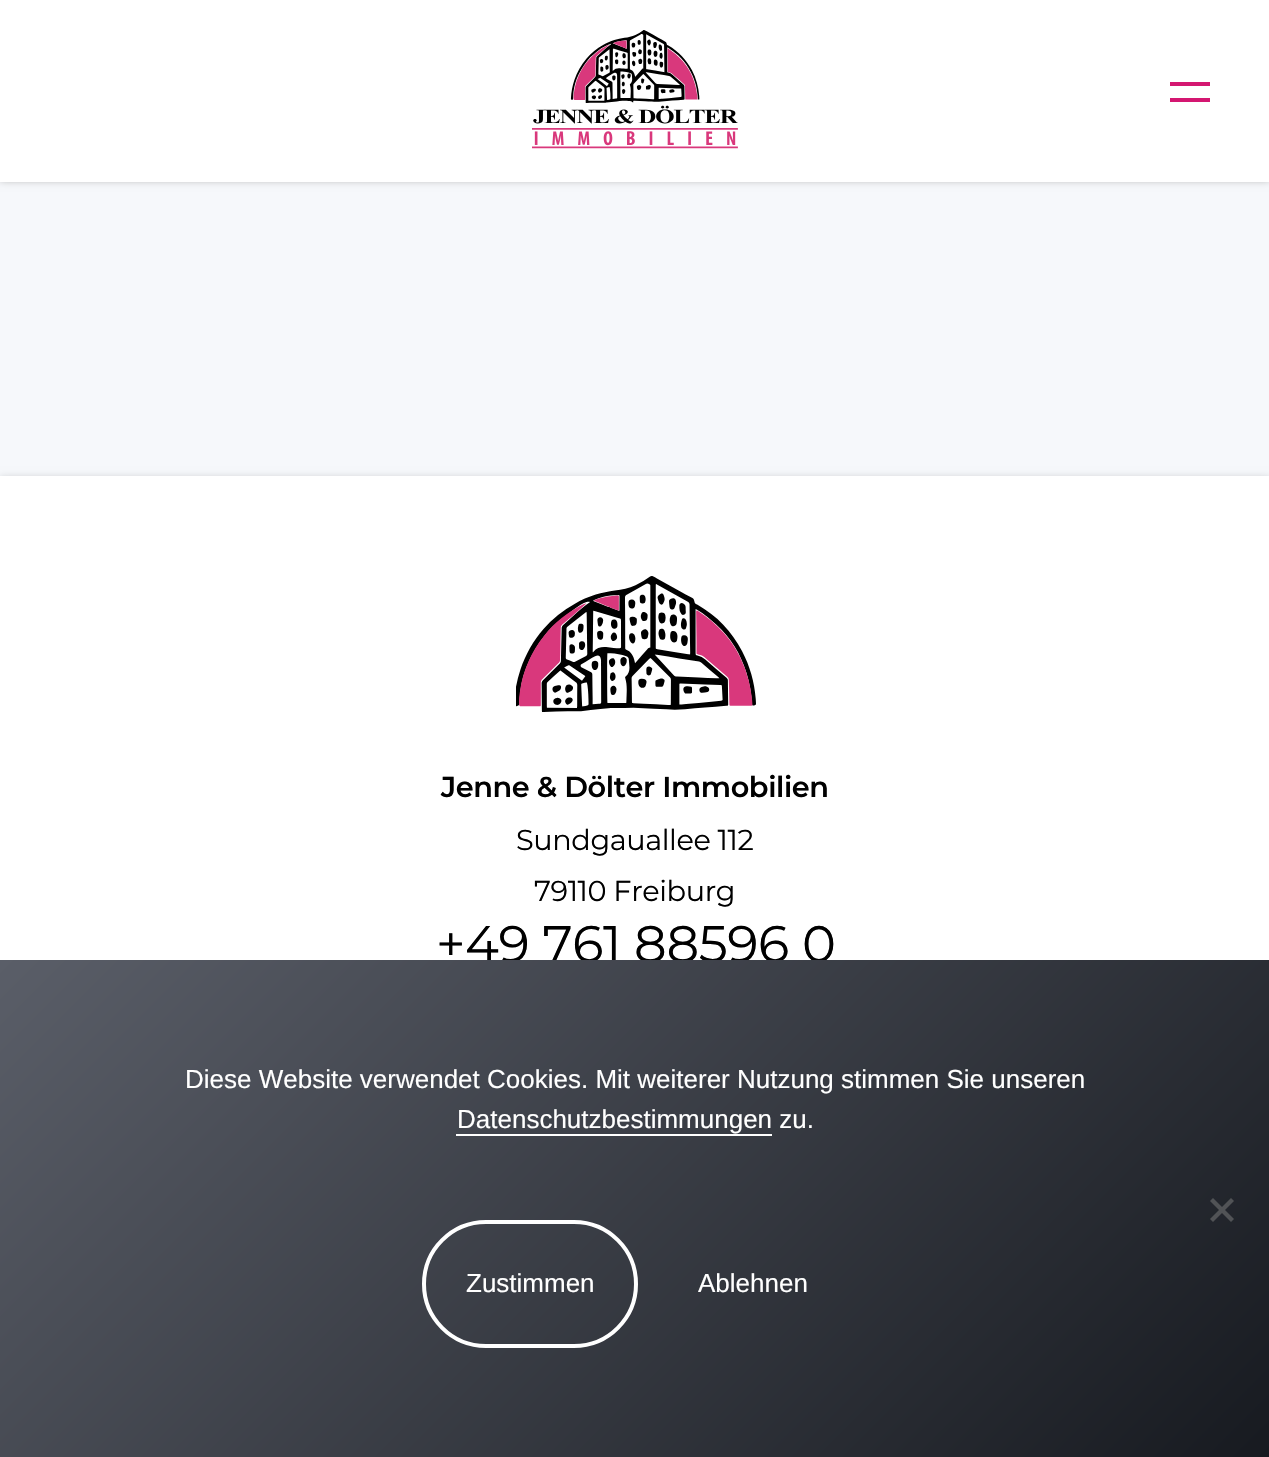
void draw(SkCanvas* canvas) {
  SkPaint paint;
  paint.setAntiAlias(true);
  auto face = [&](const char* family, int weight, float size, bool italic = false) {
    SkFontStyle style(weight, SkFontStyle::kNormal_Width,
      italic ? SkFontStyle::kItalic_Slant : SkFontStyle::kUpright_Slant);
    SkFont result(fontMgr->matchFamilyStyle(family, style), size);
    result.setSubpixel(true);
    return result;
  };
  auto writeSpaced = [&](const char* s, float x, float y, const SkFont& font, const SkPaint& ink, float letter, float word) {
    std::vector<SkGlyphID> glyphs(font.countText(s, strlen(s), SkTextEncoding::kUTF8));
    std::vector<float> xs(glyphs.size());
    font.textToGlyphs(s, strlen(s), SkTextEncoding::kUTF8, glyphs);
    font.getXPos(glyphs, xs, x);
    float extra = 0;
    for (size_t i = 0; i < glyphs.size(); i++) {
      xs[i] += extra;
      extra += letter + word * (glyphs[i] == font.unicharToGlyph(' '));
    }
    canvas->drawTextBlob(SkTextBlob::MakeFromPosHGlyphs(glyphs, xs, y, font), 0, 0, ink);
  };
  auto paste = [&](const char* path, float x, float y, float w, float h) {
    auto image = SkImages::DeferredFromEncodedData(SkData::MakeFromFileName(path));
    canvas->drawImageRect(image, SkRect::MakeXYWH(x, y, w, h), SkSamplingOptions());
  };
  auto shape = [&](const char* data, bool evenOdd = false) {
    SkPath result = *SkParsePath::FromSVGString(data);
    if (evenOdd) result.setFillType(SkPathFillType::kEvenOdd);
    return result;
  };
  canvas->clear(0xfff6f8fb);
  paint.setColor(0xffa8a8a8);
  paint.setMaskFilter(SkMaskFilter::MakeBlur(kNormal_SkBlurStyle, 4));
  canvas->drawRect(SkRect::MakeXYWH(0, -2, 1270, 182), paint);
  paint.setMaskFilter(nullptr);
  paint.setColor(0xffffffff);
  canvas->drawRect(SkRect::MakeXYWH(0, 0, 1269, 182), paint);
  paste("img/1.png", 532, 30, 206, 119);
  paint.setColor(0xffd41771);
  canvas->drawRect(SkRect::MakeXYWH(1170, 82, 40, 4), paint);
  canvas->drawRect(SkRect::MakeXYWH(1170, 98, 40, 4), paint);
  paint.setColor(0x33000000);
  paint.setMaskFilter(SkMaskFilter::MakeBlur(kNormal_SkBlurStyle, 4));
  canvas->drawRect(SkRect::MakeXYWH(0, 478, 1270, 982), paint);
  paint.setMaskFilter(nullptr);
  paint.setColor(0xffffffff);
  canvas->drawRect(SkRect::MakeXYWH(0, 476, 1269, 484), paint);
  paste("img/2.png", 516, 576, 240, 136);
  auto f0 = face("Montserrat", 600, 28.75f);
  paint.setColor(0xff000000);
  writeSpaced("Jenne & Dölter Immobilien", 441, 797, f0, paint, -0.4f, 0);
  auto f1 = face("Montserrat", 400, 28.75f);
  writeSpaced("Sundgauallee 112", 516, 850, f1, paint, -0.4f, 0);
  writeSpaced("79110 Freiburg", 534, 901, f1, paint, -0.4f, 0);
  auto f2 = face("Montserrat", 400, 51.25f);
  writeSpaced("+49 761 88596 0", 436, 962, f2, paint, -0.4f, 0);
  {
    const SkColor colors[] = {0xff5a5e68, 0xff171a20};
    const float stops[] = {0, 1};
    const SkPoint ends[] = {{193, 767}, {1077, 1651}};
    paint.setShader(SkGradientShader::MakeLinear(ends, colors, stops, 2, SkTileMode::kClamp));
    paint.setAlpha(255);
  }
  canvas->drawRect(SkRect::MakeXYWH(0, 960, 1269, 497), paint);
  auto f3 = face("Liberation Sans", 400, 26);
  paint.setShader(nullptr);
  paint.setColor(0xffffffff);
  canvas->drawString("Diese Website verwendet Cookies. Mit weiterer Nutzung stimmen Sie unseren", 185, 1088, f3, paint);
  canvas->drawString("Datenschutzbestimmungen zu.", 457, 1128, f3, paint);
  canvas->drawRect(SkRect::MakeXYWH(456, 1134, 316, 2), paint);
  paint.setColor(0xff515356);
  canvas->drawPath(shape("M1231 1198L1234 1201L1213 1222L1210 1219Z"), paint);
  canvas->drawPath(shape("M1210 1201L1213 1198L1234 1219L1231 1222Z"), paint);
  paint.setStroke(true);
  paint.setStrokeWidth(4);
  paint.setColor(0xffffffff);
  canvas->drawRoundRect(SkRect::MakeXYWH(424, 1222, 212, 124), 62, 62, paint);
  paint.setStroke(false);
  canvas->drawString("Zustimmen", 466, 1292, f3, paint);
  canvas->drawString("Ablehnen", 698, 1292, f3, paint);
}
